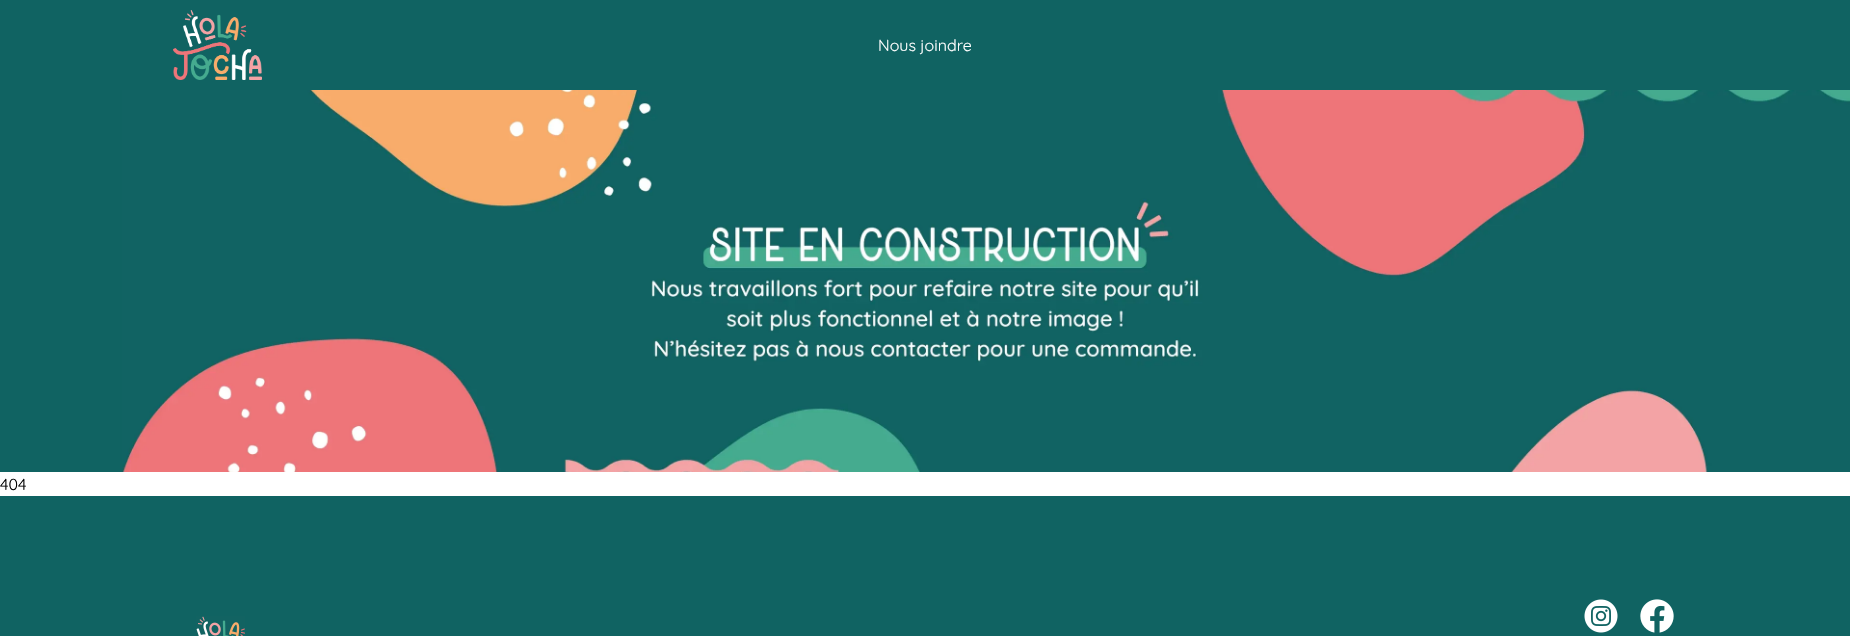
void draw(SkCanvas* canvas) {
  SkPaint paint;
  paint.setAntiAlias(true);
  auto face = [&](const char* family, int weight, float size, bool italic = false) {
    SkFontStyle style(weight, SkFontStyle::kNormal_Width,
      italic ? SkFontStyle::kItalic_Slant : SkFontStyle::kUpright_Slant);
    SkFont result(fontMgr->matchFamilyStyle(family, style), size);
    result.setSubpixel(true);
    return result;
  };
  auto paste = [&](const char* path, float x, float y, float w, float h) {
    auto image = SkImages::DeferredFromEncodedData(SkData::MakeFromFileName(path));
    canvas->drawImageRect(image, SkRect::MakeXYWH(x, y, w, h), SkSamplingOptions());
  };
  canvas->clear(0xffffffff);
  paint.setColor(0xff106362);
  canvas->drawRect(SkRect::MakeXYWH(0, 0, 1850, 90), paint);
  paste("img/1.png", 173, 10, 89, 70);
  canvas->drawRect(SkRect::MakeXYWH(0, 90, 122, 382), paint);
  paste("img/2.png", 122, 90, 1728, 382);
  canvas->drawRect(SkRect::MakeXYWH(0, 496, 1850, 140), paint);
  paste("img/3.png", 196, 616, 49, 20);
  paste("img/4.png", 1584, 599, 34, 34);
  paste("img/5.png", 1640, 599, 34, 34);
  auto f0 = face("Quicksand", 400, 16);
  paint.setColor(0xffffffff);
  canvas->drawString("Nous joindre", 878, 51, f0, paint);
  paint.setColor(0xff000000);
  canvas->drawString("404", 0, 490, f0, paint);
}
